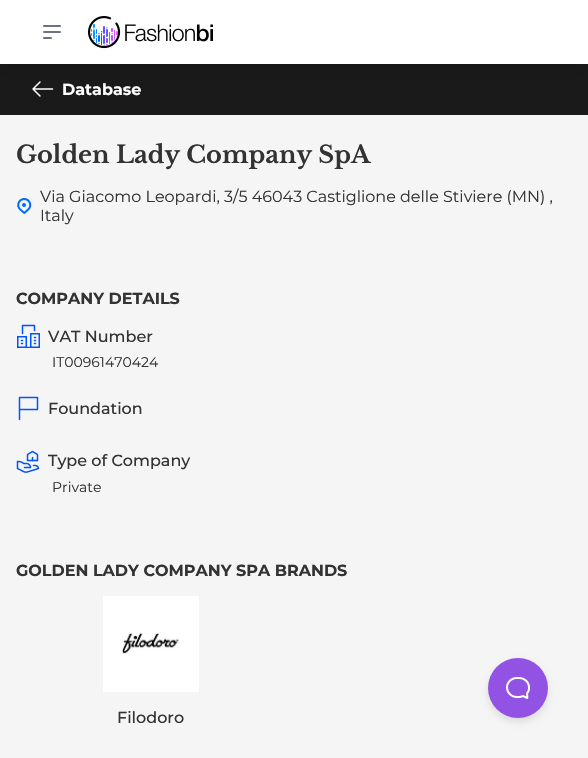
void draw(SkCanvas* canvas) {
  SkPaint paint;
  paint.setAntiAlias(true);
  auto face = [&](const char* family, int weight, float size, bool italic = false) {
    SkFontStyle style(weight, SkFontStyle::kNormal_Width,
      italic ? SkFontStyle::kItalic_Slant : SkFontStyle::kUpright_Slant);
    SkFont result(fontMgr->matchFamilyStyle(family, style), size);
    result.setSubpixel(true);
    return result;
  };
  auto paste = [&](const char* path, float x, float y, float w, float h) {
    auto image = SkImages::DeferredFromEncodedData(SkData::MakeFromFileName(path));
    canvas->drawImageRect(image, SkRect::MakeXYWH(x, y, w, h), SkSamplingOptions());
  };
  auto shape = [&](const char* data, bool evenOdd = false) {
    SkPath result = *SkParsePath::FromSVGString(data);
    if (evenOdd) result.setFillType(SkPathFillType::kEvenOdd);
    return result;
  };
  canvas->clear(0xfff5f5f5);
  paint.setColor(0xff1a1a1a);
  canvas->drawRect(SkRect::MakeXYWH(0, 64, 588, 51), paint);
  paint.setStroke(true);
  paint.setStrokeWidth(1.5f);
  paint.setStrokeCap(SkPaint::kRound_Cap);
  paint.setStrokeJoin(SkPaint::kRound_Join);
  paint.setColor(0xffffffff);
  canvas->drawPath(shape("M52.5 89H33M40 96L33 89L40 82"), paint);
  paint.setStroke(false);
  paint.setColor(0x1a000000);
  paint.setMaskFilter(SkMaskFilter::MakeBlur(kNormal_SkBlurStyle, 7.5f));
  canvas->drawRect(SkRect::MakeXYWH(3, 13, 582, 58), paint);
  paint.setMaskFilter(nullptr);
  paint.setColor(0xffffffff);
  canvas->drawRect(SkRect::MakeXYWH(0, 0, 588, 64), paint);
  paint.setStroke(true);
  paint.setStrokeWidth(2);
  paint.setColor(0xff6b7280);
  canvas->drawPath(shape("M44 26H60M44 32H60M44 38H51"), paint);
  paste("img/1.png", 88, 16, 125, 33);
  paste("img/2.png", 17, 198, 15, 16);
  paste("img/3.png", 17, 324, 23, 24);
  paint.setStrokeWidth(1.5f);
  paint.setColor(0xff0055fe);
  canvas->drawPath(shape("M19.5 397.5H37.5V409.5H19.5M19.5 397.5V419.5"), paint);
  paste("img/4.png", 16, 450, 24, 23);
  paint.setStroke(false);
  paint.setColor(0xffffffff);
  canvas->drawRect(SkRect::MakeXYWH(103, 596, 96, 96), paint);
  paste("img/5.png", 120, 632, 60, 23);
  paint.setColor(0x1a000000);
  paint.setMaskFilter(SkMaskFilter::MakeBlur(kNormal_SkBlurStyle, 3.5f));
  canvas->drawRoundRect(SkRect::MakeXYWH(488, 662, 60, 60), 30, 30, paint);
  paint.setMaskFilter(nullptr);
  paint.setColor(0xff9253e5);
  canvas->drawCircle(518, 688, 30, paint);
  paste("img/6.png", 506, 677, 24, 22);
  auto f0 = face("Montserrat", 700, 16);
  paint.setColor(0xffffffff);
  canvas->drawString("Database", 62, 95, f0, paint);
  auto f1 = face("Libre Baskerville", 700, 24);
  paint.setColor(0xff333333);
  canvas->drawString("Golden Lady Company SpA", 16, 163, f1, paint);
  auto f2 = face("Montserrat", 400, 16);
  canvas->drawString("Via Giacomo Leopardi, 3/5 46043 Castiglione delle Stiviere (MN) ,", 40, 202, f2, paint);
  canvas->drawString("Italy", 40, 221, f2, paint);
  canvas->drawString("COMPANY DETAILS", 16, 304, f0, paint);
  auto f3 = face("Montserrat", 500, 16);
  canvas->drawString("VAT Number", 48, 342, f3, paint);
  auto f4 = face("Montserrat", 400, 14);
  canvas->drawString("IT00961470424", 52, 367, f4, paint);
  canvas->drawString("Foundation", 48, 414, f3, paint);
  canvas->drawString("Type of Company", 48, 466, f3, paint);
  canvas->drawString("Private", 52, 492, f4, paint);
  canvas->drawString("GOLDEN LADY COMPANY SPA BRANDS", 16, 576, f0, paint);
  canvas->drawString("Filodoro", 117, 723, f3, paint);
}
